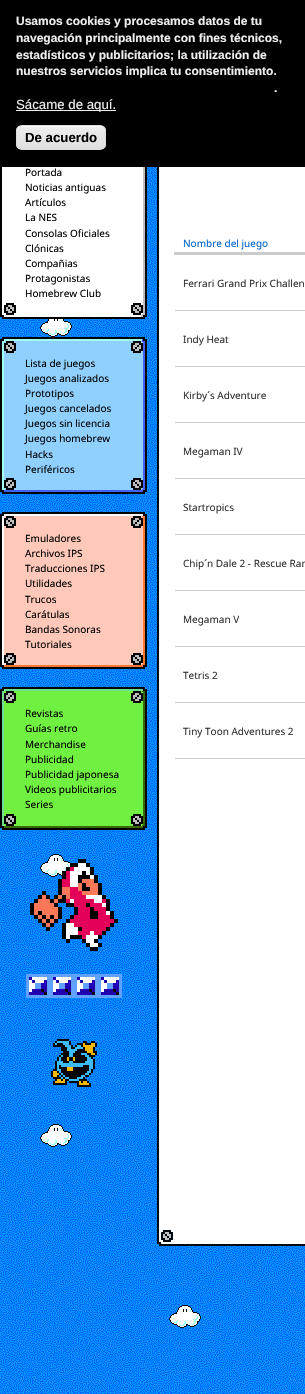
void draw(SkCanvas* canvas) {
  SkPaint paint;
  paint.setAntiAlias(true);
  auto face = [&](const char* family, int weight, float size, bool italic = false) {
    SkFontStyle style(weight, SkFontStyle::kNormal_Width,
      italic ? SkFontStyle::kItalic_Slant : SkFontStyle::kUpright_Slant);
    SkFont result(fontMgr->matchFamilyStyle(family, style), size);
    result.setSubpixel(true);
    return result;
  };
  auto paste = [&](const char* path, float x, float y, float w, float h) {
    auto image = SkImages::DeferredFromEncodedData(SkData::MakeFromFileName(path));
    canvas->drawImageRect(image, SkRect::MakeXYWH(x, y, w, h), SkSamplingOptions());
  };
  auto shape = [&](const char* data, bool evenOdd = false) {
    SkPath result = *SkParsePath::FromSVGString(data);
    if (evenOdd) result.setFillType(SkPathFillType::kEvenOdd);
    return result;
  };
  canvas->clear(0xffffffff);
  paste("img/1.png", 0, 167, 305, 1227);
  paint.setColor(0xff000000);
  canvas->drawRect(SkRect::MakeXYWH(0, 0, 305, 167), paint);
  paint.setColor(0xffeeeeee);
  canvas->drawRect(SkRect::MakeXYWH(16, 110, 100, 1), paint);
  canvas->save();
  canvas->clipPath(shape("M22 125H100C103.5 125 106 127.5 106 131V144C106 147.5 103.5 150 100 150H22C18.5 150 16 147.5 16 144V131C16 127.5 18.5 125 22 125Z"), true);
  {
    const SkColor colors[] = {0xffededed, 0xffdfdfdf};
    const float stops[] = {0.05f, 1};
    const SkPoint ends[] = {{61, 126}, {61, 149}};
    paint.setShader(SkGradientShader::MakeLinear(ends, colors, stops, 2, SkTileMode::kClamp));
    paint.setAlpha(255);
  }
  canvas->drawRect(SkRect::MakeXYWH(16, 126, 90, 23), paint);
  canvas->restore();
  paint.setShader(nullptr);
  paint.setColor(0xffffffff);
  canvas->drawPath(shape("M22 127H100C103 127 105 129 105 132C105 123 93 126 87 126H35C29 126 17 123 17 132C17 129 19 127 22 127Z"), paint);
  paint.setStroke(true);
  paint.setStrokeWidth(1);
  paint.setColor(0xffdcdcdc);
  canvas->drawRoundRect(SkRect::MakeXYWH(16.5f, 125.5f, 89, 24), 5.5f, 5.5f, paint);
  paste("img/2.png", 0, 167, 147, 152);
  paste("img/3.png", 0, 337, 147, 157);
  paste("img/4.png", 0, 512, 147, 157);
  paste("img/5.png", 0, 687, 147, 143);
  paste("img/6.png", 26, 859, 96, 139);
  paste("img/7.png", 51, 1039, 46, 48);
  paste("img/8.png", 157, 167, 148, 1079);
  paint.setStroke(false);
  {
    const struct { float x, y, w, h; SkColor color; } items[] = {
      {174, 252, 131, 3, 0xffcccccc},
      {175, 310, 130, 1, 0xffcccccc},
      {175, 366, 130, 1, 0xffcccccc},
      {175, 422, 130, 1, 0xffcccccc},
      {175, 478, 130, 1, 0xffcccccc},
      {175, 534, 130, 1, 0xffcccccc},
      {175, 590, 130, 1, 0xffcccccc},
      {175, 646, 130, 1, 0xffcccccc},
      {175, 702, 130, 1, 0xffcccccc},
      {175, 758, 130, 1, 0xffcccccc},
    };
    for (auto [x, y, w, h, color] : items) {
      paint.setColor(color);
      canvas->drawRect(SkRect::MakeXYWH(x, y, w, h), paint);
    }
  }
  auto f0 = face("Liberation Sans", 700, 12);
  paint.setColor(0xffeeeeee);
  {
    const struct { const char* s; float x, y; } items[] = {
      {"Usamos cookies y procesamos datos de tu", 16, 25},
      {"navegación principalmente con fines técnicos,", 16, 42},
      {"estadísticos y publicitarios; la utilización de", 16, 59},
      {"nuestros servicios implica tu consentimiento.", 16, 75},
      {".", 274, 92},
    };
    for (auto [s, x, y] : items) {
      canvas->drawString(s, x, y, f0, paint);
    }
  }
  auto f1 = face("Liberation Sans", 400, 13.25f);
  canvas->drawString("Sácame de aquí.", 16, 109, f1, paint);
  auto f2 = face("Liberation Sans", 700, 13.25f);
  paint.setColor(0xff000000);
  canvas->drawString("De acuerdo", 25, 142, f2, paint);
  auto f3 = face("Noto Sans", 400, 10);
  {
    const struct { const char* s; float x, y; } items[] = {
      {"Portada", 25, 176},
      {"Noticias antiguas", 25, 191},
      {"Artículos", 25, 206},
      {"La NES", 25, 221},
      {"Consolas Oficiales", 25, 237},
      {"Clónicas", 25, 252},
      {"Compañias", 25, 267},
      {"Protagonistas", 25, 282},
      {"Homebrew Club", 25, 297},
      {"Lista de juegos", 25, 367},
      {"Juegos analizados", 25, 382},
      {"Prototipos", 25, 397},
      {"Juegos cancelados", 25, 412},
      {"Juegos sin licencia", 25, 427},
      {"Juegos homebrew", 25, 442},
      {"Hacks", 25, 458},
      {"Periféricos", 25, 473},
      {"Emuladores", 25, 542},
      {"Archivos IPS", 25, 557},
      {"Traducciones IPS", 25, 572},
      {"Utilidades", 25, 587},
      {"Trucos", 25, 603},
      {"Carátulas", 25, 618},
      {"Bandas Sonoras", 25, 633},
      {"Tutoriales", 25, 648},
      {"Revistas", 25, 717},
      {"Guías retro", 25, 732},
      {"Merchandise", 25, 748},
      {"Publicidad", 25, 763},
      {"Publicidad japonesa", 25, 778},
      {"Videos publicitarios", 25, 793},
      {"Series", 25, 808},
    };
    for (auto [s, x, y] : items) {
      canvas->drawString(s, x, y, f3, paint);
    }
  }
  paint.setColor(0xff0066cc);
  canvas->drawString("Nombre del juego", 183, 247, f3, paint);
  paint.setColor(0xff333333);
  {
    const struct { const char* s; float x, y; } items[] = {
      {"Ferrari Grand Prix Challen", 183, 287},
      {"Indy Heat", 183, 343},
      {"Kirby´s Adventure", 183, 399},
      {"Megaman IV", 183, 455},
      {"Startropics", 183, 511},
      {"Chip´n Dale 2 - Rescue Ran", 183, 567},
      {"Megaman V", 183, 623},
      {"Tetris 2", 183, 679},
      {"Tiny Toon Adventures 2", 183, 735},
    };
    for (auto [s, x, y] : items) {
      canvas->drawString(s, x, y, f3, paint);
    }
  }
}
